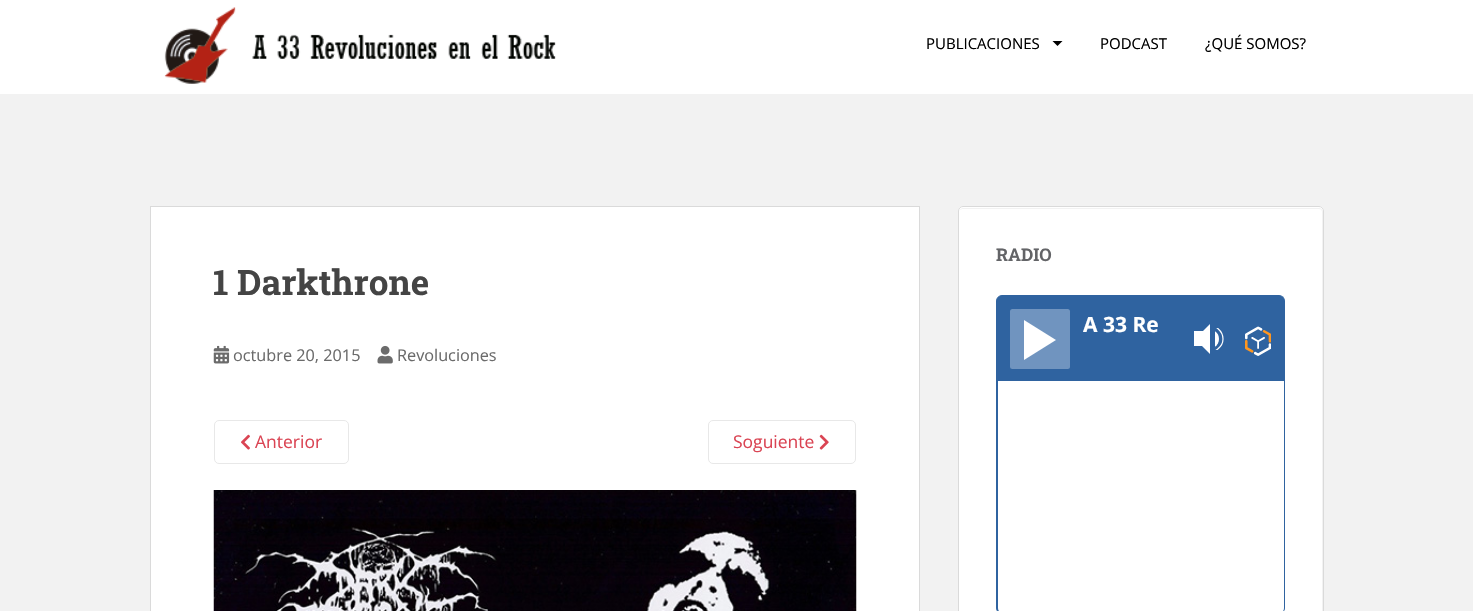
void draw(SkCanvas* canvas) {
  SkPaint paint;
  paint.setAntiAlias(true);
  auto face = [&](const char* family, int weight, float size, bool italic = false) {
    SkFontStyle style(weight, SkFontStyle::kNormal_Width,
      italic ? SkFontStyle::kItalic_Slant : SkFontStyle::kUpright_Slant);
    SkFont result(fontMgr->matchFamilyStyle(family, style), size);
    result.setSubpixel(true);
    return result;
  };
  auto paste = [&](const char* path, float x, float y, float w, float h) {
    auto image = SkImages::DeferredFromEncodedData(SkData::MakeFromFileName(path));
    canvas->drawImageRect(image, SkRect::MakeXYWH(x, y, w, h), SkSamplingOptions());
  };
  auto shape = [&](const char* data, bool evenOdd = false) {
    SkPath result = *SkParsePath::FromSVGString(data);
    if (evenOdd) result.setFillType(SkPathFillType::kEvenOdd);
    return result;
  };
  canvas->clear(0xfff2f2f2);
  paint.setColor(0xffffffff);
  canvas->drawRect(SkRect::MakeXYWH(0, 0, 1473, 94), paint);
  paste("img/1.png", 164, 7, 392, 77);
  paint.setColor(0xff000000);
  canvas->drawPath(shape("M1052.5 41H1062.5L1057.5 46Z"), paint);
  paint.setColor(0xffffffff);
  canvas->drawRect(SkRect::MakeXYWH(150.5f, 206.5f, 769, 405), paint);
  paint.setStroke(true);
  paint.setStrokeWidth(1);
  paint.setColor(0xffdadada);
  canvas->drawRect(SkRect::MakeXYWH(150.5f, 206.5f, 769, 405), paint);
  paste("img/2.png", 213, 345, 17, 19);
  paste("img/3.png", 377, 345, 16, 19);
  paint.setColor(0xffe8e8e8);
  canvas->drawRoundRect(SkRect::MakeXYWH(214.5f, 420.5f, 134, 43), 4.5f, 4.5f, paint);
  paste("img/4.png", 241, 434, 9, 16);
  canvas->drawRoundRect(SkRect::MakeXYWH(708.5f, 420.5f, 147, 43), 4.5f, 4.5f, paint);
  paste("img/5.png", 819, 434, 10, 16);
  paste("img/6.png", 213, 490, 644, 121);
  paint.setStroke(false);
  paint.setColor(0xffffffff);
  canvas->drawRoundRect(SkRect::MakeXYWH(958, 206, 366, 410), 5, 5, paint);
  paint.setColor(0xfff2f2f2);
  canvas->drawPath(shape("M962 209H1319C1321 209 1322 210 1322 212V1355V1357C1322 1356 1323 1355 1323 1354V212C1323 210 1321 208 1319 208H963C962 208 960 209 960 210Z"), paint);
  paint.setStroke(true);
  paint.setColor(0xffdadada);
  canvas->drawRoundRect(SkRect::MakeXYWH(958.5f, 206.5f, 365, 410), 4.5f, 4.5f, paint);
  paint.setStroke(false);
  paint.setColor(0xff2f63a0);
  canvas->drawRoundRect(SkRect::MakeXYWH(996.5f, 295.5f, 288, 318), 5.5f, 5.5f, paint);
  paint.setStroke(true);
  canvas->drawRoundRect(SkRect::MakeXYWH(996.5f, 295.5f, 288, 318), 5.5f, 5.5f, paint);
  paint.setStroke(false);
  paint.setColor(0xffffffff);
  canvas->drawPath(shape("M998 381H1284V608C1284 611 1282 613 1279 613H1003C1000 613 998 611 998 608Z"), paint);
  canvas->save();
  canvas->clipRect(SkRect::MakeXYWH(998, 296, 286, 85));
  paint.setColor(0xff2f63a0);
  paint.setMaskFilter(SkMaskFilter::MakeBlur(kNormal_SkBlurStyle, 20));
  canvas->drawRect(SkRect::MakeXYWH(1154, 256, 110, 165), paint);
  paint.setMaskFilter(nullptr);
  canvas->restore();
  paint.setColor(0xffffffff);
  canvas->drawRect(SkRect::MakeXYWH(1194, 331, 9, 15), paint);
  canvas->drawPath(shape("M1210 324V354L1195 339Z"), paint);
  canvas->save();
  canvas->clipRect(SkRect::MakeXYWH(1215, 328, 9, 22));
  paint.setStroke(true);
  paint.setStrokeWidth(1.2f);
  canvas->drawPath(shape("M1206 324.5C1215.5 324.5 1223 331 1223 339C1223 346.5 1215.5 353 1206 353C1197 353 1189.5 346.5 1189.5 339C1189.5 331 1197 324.5 1206 324.5Z"), paint);
  paint.setStroke(false);
  canvas->drawPath(shape("M1210 330C1222 330 1222 348 1210 348C1198 348 1198 330 1210 330Z"), paint);
  canvas->restore();
  paint.setColor(0xff7094bf);
  canvas->drawRoundRect(SkRect::MakeXYWH(1010, 309, 60, 60), 2.5f, 2.5f, paint);
  paint.setColor(0xffffffff);
  canvas->drawPath(shape("M1024 360V320L1056 340Z"), paint);
  paste("img/7.png", 1245, 326, 26, 30);
  auto f0 = face("Open Sans", 400, 15);
  paint.setColor(0xff000000);
  {
    const struct { const char* s; float x, y; } items[] = {
      {"PUBLICACIONES", 926, 49},
      {"PODCAST", 1100, 49},
      {"¿QUÉ SOMOS?", 1205, 49},
    };
    for (auto [s, x, y] : items) {
      canvas->drawString(s, x, y, f0, paint);
    }
  }
  auto f1 = face("Roboto Slab", 700, 35);
  paint.setColor(0xff444444);
  canvas->drawString("1 Darkthrone", 213, 295, f1, paint);
  auto f2 = face("Open Sans", 400, 16.25f);
  paint.setColor(0xff6b6b6b);
  canvas->drawString("octubre 20, 2015", 233, 361, f2, paint);
  canvas->drawString("Revoluciones", 397, 361, f2, paint);
  auto f3 = face("Open Sans", 400, 17.5f);
  paint.setColor(0xffda4453);
  canvas->drawString("Anterior", 255, 448, f3, paint);
  canvas->drawString("Soguiente", 733, 448, f3, paint);
  auto f4 = face("Roboto Slab", 700, 17.5f);
  paint.setColor(0xff636467);
  canvas->drawString("RADIO", 996, 261, f4, paint);
  auto f5 = face("Open Sans", 700, 21);
  paint.setColor(0xffffffff);
  canvas->drawString("A 33 Re", 1083, 332, f5, paint);
}
